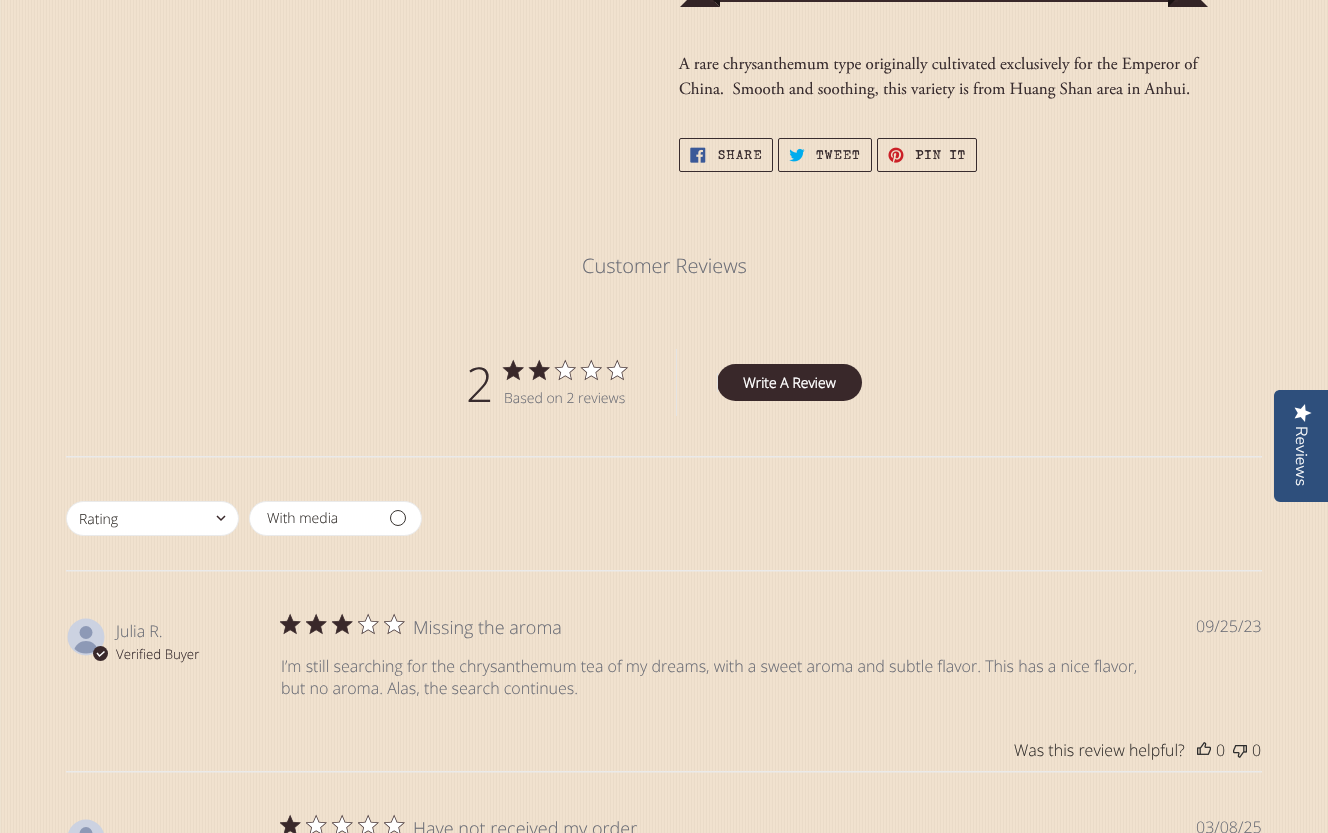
void draw(SkCanvas* canvas) {
  SkPaint paint;
  paint.setAntiAlias(true);
  auto face = [&](const char* family, int weight, float size, bool italic = false) {
    SkFontStyle style(weight, SkFontStyle::kNormal_Width,
      italic ? SkFontStyle::kItalic_Slant : SkFontStyle::kUpright_Slant);
    SkFont result(fontMgr->matchFamilyStyle(family, style), size);
    result.setSubpixel(true);
    return result;
  };
  auto writeSpaced = [&](const char* s, float x, float y, const SkFont& font, const SkPaint& ink, float letter, float word) {
    std::vector<SkGlyphID> glyphs(font.countText(s, strlen(s), SkTextEncoding::kUTF8));
    std::vector<float> xs(glyphs.size());
    font.textToGlyphs(s, strlen(s), SkTextEncoding::kUTF8, glyphs);
    font.getXPos(glyphs, xs, x);
    float extra = 0;
    for (size_t i = 0; i < glyphs.size(); i++) {
      xs[i] += extra;
      extra += letter + word * (glyphs[i] == font.unicharToGlyph(' '));
    }
    canvas->drawTextBlob(SkTextBlob::MakeFromPosHGlyphs(glyphs, xs, y, font), 0, 0, ink);
  };
  auto paste = [&](const char* path, float x, float y, float w, float h) {
    auto image = SkImages::DeferredFromEncodedData(SkData::MakeFromFileName(path));
    canvas->drawImageRect(image, SkRect::MakeXYWH(x, y, w, h), SkSamplingOptions());
  };
  auto shape = [&](const char* data, bool evenOdd = false) {
    SkPath result = *SkParsePath::FromSVGString(data);
    if (evenOdd) result.setFillType(SkPathFillType::kEvenOdd);
    return result;
  };
  canvas->clear(0xffeee3d1);
  paste("img/1.png", 1, 0, 1327, 833);
  paint.setColor(0xff332426);
  canvas->drawPath(shape("M720 7H680L700-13Z"), paint);
  canvas->drawPath(shape("M1208 7H1168L1188-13Z"), paint);
  canvas->drawRect(SkRect::MakeXYWH(1168, 0, 7, 7), paint);
  paint.setColor(0xff39282a);
  canvas->drawRoundRect(SkRect::MakeXYWH(710, -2, 468, 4), 2, 2, paint);
  paint.setColor(0xff1b1314);
  canvas->drawPath(shape("M710-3H720V7Z"), paint);
  canvas->drawPath(shape("M1168-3H1178L1168 7Z"), paint);
  paint.setStroke(true);
  paint.setStrokeWidth(1);
  paint.setColor(0xff382c2e);
  canvas->drawRoundRect(SkRect::MakeXYWH(679.5f, 138.5f, 93, 33), 1.5f, 1.5f, paint);
  paste("img/2.png", 690, 147, 16, 16);
  canvas->drawRoundRect(SkRect::MakeXYWH(778.5f, 138.5f, 93, 33), 1.5f, 1.5f, paint);
  paste("img/3.png", 789, 148, 16, 14);
  canvas->drawRoundRect(SkRect::MakeXYWH(877.5f, 138.5f, 99, 33), 1.5f, 1.5f, paint);
  paste("img/4.png", 888, 147, 16, 16);
  paste("img/5.png", 502, 359, 22, 22);
  paste("img/6.png", 528, 359, 22, 22);
  paste("img/7.png", 554, 359, 22, 22);
  paste("img/8.png", 580, 359, 22, 22);
  paste("img/9.png", 606, 359, 22, 22);
  paint.setStroke(false);
  paint.setColor(0xffe3e3e3);
  canvas->drawRect(SkRect::MakeXYWH(676, 349, 1, 67), paint);
  paint.setColor(0xff39282a);
  canvas->drawRoundRect(SkRect::MakeXYWH(717, 364, 145, 37), 18.5f, 18.5f, paint);
  paint.setColor(0xffe3e3e3);
  canvas->drawRect(SkRect::MakeXYWH(717, 373, 1, 19), paint);
  paste("img/10.png", 66, 456, 1196, 2);
  paint.setColor(0xffffffff);
  canvas->drawRoundRect(SkRect::MakeXYWH(66.5f, 501.5f, 172, 34), 17, 17, paint);
  paint.setStroke(true);
  paint.setColor(0xffeaeaea);
  canvas->drawRoundRect(SkRect::MakeXYWH(66.5f, 501.5f, 172, 34), 17, 17, paint);
  paint.setStrokeWidth(1.5f);
  paint.setColor(0xff39282a);
  canvas->drawPath(shape("M217 516L221 520L225 516"), paint);
  paint.setStroke(false);
  paint.setColor(0xffffffff);
  canvas->drawRoundRect(SkRect::MakeXYWH(249.5f, 501.5f, 172, 34), 17, 17, paint);
  paint.setStroke(true);
  paint.setStrokeWidth(1);
  paint.setColor(0xffeaeaea);
  canvas->drawRoundRect(SkRect::MakeXYWH(249.5f, 501.5f, 172, 34), 17, 17, paint);
  paint.setColor(0xff373330);
  canvas->drawCircle(398, 518, 7.5f, paint);
  paste("img/10.png", 66, 570, 1196, 2);
  paint.setStroke(false);
  paint.setColor(0xffccd2e1);
  canvas->drawCircle(86, 637, 18.5f, paint);
  paint.setColor(0xff8d99b6);
  canvas->drawCircle(86, 632.5f, 6.5f, paint);
  canvas->drawPath(shape("M86 641C91.5 641 96 644.5 97.5 649C91.5 655 80.5 655 74.5 649C76 644.5 80.5 641 86 641Z"), paint);
  paint.setColor(0xff39282a);
  canvas->drawCircle(100.5f, 653.5f, 7.5f, paint);
  paint.setStroke(true);
  paint.setStrokeWidth(1.5f);
  paint.setColor(0xffffffff);
  canvas->drawPath(shape("M97 653L99.5 656L104.5 651.5"), paint);
  paste("img/11.png", 280, 613, 21, 22);
  paste("img/12.png", 306, 613, 21, 22);
  paste("img/13.png", 332, 613, 21, 22);
  paste("img/14.png", 358, 613, 21, 22);
  paste("img/15.png", 384, 613, 21, 22);
  paste("img/16.png", 1197, 742, 14, 13);
  paste("img/17.png", 1233, 745, 14, 13);
  paste("img/10.png", 66, 771, 1196, 2);
  paint.setStroke(false);
  paint.setColor(0xffccd2e1);
  canvas->drawCircle(86, 838, 18.5f, paint);
  paint.setColor(0xff8d99b6);
  canvas->drawCircle(86, 833.5f, 6.5f, paint);
  paste("img/18.png", 280, 814, 21, 19);
  paste("img/19.png", 306, 814, 21, 19);
  paste("img/20.png", 332, 814, 21, 19);
  paste("img/21.png", 358, 814, 21, 19);
  paste("img/19.png", 384, 814, 21, 19);
  paint.setColor(0xff2e4f7c);
  canvas->drawPath(shape("M1328 390V502H1280C1277 502 1274 499 1274 496V396C1274 392 1277 390 1280 390Z"), paint);
  paste("img/22.png", 1294, 404, 18, 18);
  auto f0 = face("Adobe Garamond", 400, 17);
  paint.setColor(0xff382c2e);
  canvas->drawString("A rare chrysanthemum type originally cultivated exclusively for the Emperor of", 679, 69, f0, paint);
  canvas->drawString("China.  Smooth and soothing, this variety is from Huang Shan area in Anhui.", 679, 94, f0, paint);
  auto f1 = face("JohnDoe", 700, 12);
  {
    const struct { const char* s; float x, y; } items[] = {
      {"SHARE", 718, 159},
      {"TWEET", 816, 159},
      {"PIN IT", 915, 159},
    };
    for (auto [s, x, y] : items) {
      writeSpaced(s, x, y, f1, paint, 1, 0);
    }
  }
  auto f2 = face("Open Sans", 300, 20);
  paint.setColor(0xff6b6d76);
  canvas->drawString("Customer Reviews", 582, 273, f2, paint);
  auto f3 = face("Open Sans", 300, 48);
  paint.setColor(0xff382c2e);
  canvas->drawString("2", 466, 402, f3, paint);
  auto f4 = face("Open Sans", 300, 14);
  paint.setColor(0xff6b6d76);
  canvas->drawString("Based on 2 reviews", 504, 403, f4, paint);
  auto f5 = face("Open Sans", 700, 14);
  paint.setColor(0xffffffff);
  canvas->drawString("Write A Review", 743, 388, f5, paint);
  paint.setColor(0xff373330);
  canvas->drawString("Rating", 79, 524, f4, paint);
  canvas->drawString("With media", 267, 523, f4, paint);
  auto f6 = face("Open Sans", 300, 16);
  paint.setColor(0xff6b6d76);
  canvas->drawString("Julia R.", 116, 637, f6, paint);
  auto f7 = face("Open Sans", 300, 13.25f);
  paint.setColor(0xff382c2e);
  canvas->drawString("Verified Buyer", 116, 659, f7, paint);
  auto f8 = face("Open Sans", 300, 18);
  paint.setColor(0xff6b6d76);
  canvas->drawString("Missing the aroma", 413, 634, f8, paint);
  {
    const struct { const char* s; float x, y; } items[] = {
      {"I’m still searching for the chrysanthemum tea of my dreams, with a sweet aroma and subtle flavor. This has a nice flavor,", 281, 672},
      {"but no aroma. Alas, the search continues.", 281, 694},
      {"09/25/23", 1196, 632},
    };
    for (auto [s, x, y] : items) {
      canvas->drawString(s, x, y, f6, paint);
    }
  }
  paint.setColor(0xff373330);
  {
    const struct { const char* s; float x, y; } items[] = {
      {"Was this review helpful?", 1014, 756},
      {"0", 1216, 756},
      {"0", 1252, 756},
    };
    for (auto [s, x, y] : items) {
      canvas->drawString(s, x, y, f6, paint);
    }
  }
  paint.setColor(0xff6b6d76);
  canvas->drawString("Have not received my order", 413, 835, f8, paint);
  canvas->drawString("03/08/25", 1196, 833, f6, paint);
  auto f9 = face("Nunito Sans", 300, 16);
  paint.setColor(0xffffffff);
  canvas->save();
  canvas->rotate(90, 1296, 426);
  canvas->drawString("Reviews", 1296, 426, f9, paint);
  canvas->restore();
}
